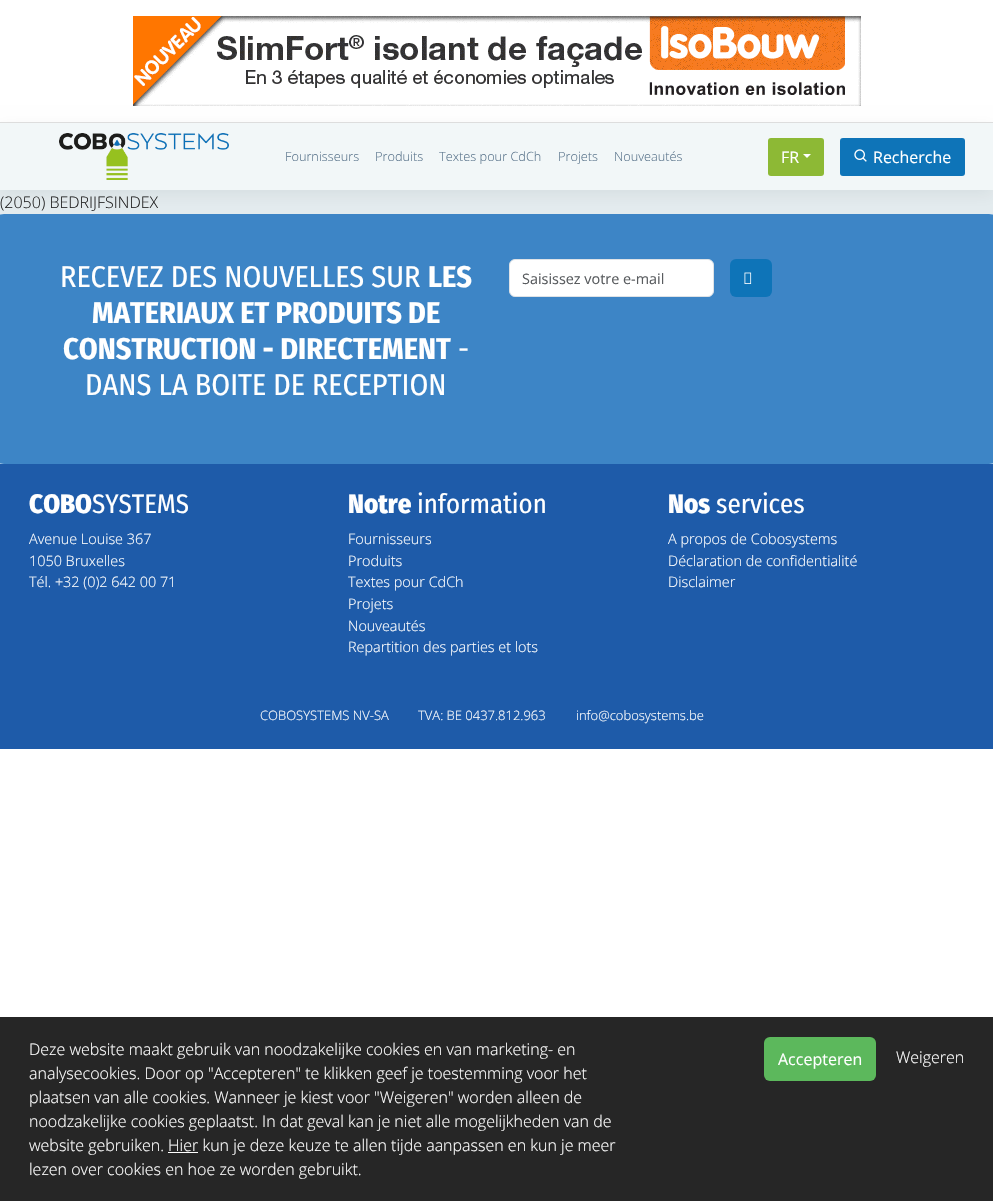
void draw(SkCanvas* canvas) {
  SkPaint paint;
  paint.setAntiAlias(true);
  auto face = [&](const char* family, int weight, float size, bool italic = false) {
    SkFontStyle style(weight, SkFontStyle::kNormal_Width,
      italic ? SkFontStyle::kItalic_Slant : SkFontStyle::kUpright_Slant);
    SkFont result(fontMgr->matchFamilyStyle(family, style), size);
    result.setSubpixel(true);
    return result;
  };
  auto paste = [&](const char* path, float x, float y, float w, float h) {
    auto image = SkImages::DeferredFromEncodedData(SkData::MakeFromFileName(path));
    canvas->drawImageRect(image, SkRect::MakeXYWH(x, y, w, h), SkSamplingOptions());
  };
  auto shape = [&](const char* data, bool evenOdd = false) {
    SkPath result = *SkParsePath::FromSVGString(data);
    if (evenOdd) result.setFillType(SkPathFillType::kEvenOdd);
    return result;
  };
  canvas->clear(0xffffffff);
  paste("img/1.png", 133, 16, 728, 90);
  paint.setColor(0xffe4ecef);
  canvas->drawRect(SkRect::MakeXYWH(0, 190, 993, 24), paint);
  paint.setColor(0x0f000000);
  paint.setMaskFilter(SkMaskFilter::MakeBlur(kNormal_SkBlurStyle, 7.5f));
  canvas->drawRect(SkRect::MakeXYWH(0, 127, 993, 68), paint);
  paint.setMaskFilter(nullptr);
  paint.setColor(0xfff2f7f8);
  canvas->drawRect(SkRect::MakeXYWH(0, 123, 993, 67), paint);
  paint.setColor(0xffdddddd);
  canvas->drawRect(SkRect::MakeXYWH(0, 122, 993, 1), paint);
  paste("img/2.png", 59, 133, 170, 47);
  paint.setColor(0xff8db935);
  canvas->drawRoundRect(SkRect::MakeXYWH(768, 138, 56, 38), 3, 3, paint);
  paint.setColor(0xffffffff);
  canvas->drawPath(shape("M803 154H811L807 158Z"), paint);
  paint.setColor(0xff0e74b8);
  canvas->drawRoundRect(SkRect::MakeXYWH(840, 138, 125, 38), 3, 3, paint);
  paste("img/3.png", 854, 149, 13, 13);
  paint.setColor(0xff3d85c6);
  canvas->drawRoundRect(SkRect::MakeXYWH(-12, 214, 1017, 250), 16, 16, paint);
  paint.setColor(0xffffffff);
  canvas->drawRoundRect(SkRect::MakeXYWH(509.5f, 259.5f, 204, 37), 5.5f, 5.5f, paint);
  paint.setStroke(true);
  paint.setStrokeWidth(1);
  paint.setColor(0xffdee2e6);
  canvas->drawRoundRect(SkRect::MakeXYWH(509.5f, 259.5f, 204, 37), 5.5f, 5.5f, paint);
  paint.setStroke(false);
  paint.setColor(0xff0e74b8);
  canvas->drawRoundRect(SkRect::MakeXYWH(730, 259, 42, 38), 6, 6, paint);
  paste("img/4.png", 744, 272, 8, 12);
  {
    const struct { float x, y, w, h; SkColor color; } items[] = {
      {0, 464, 993, 285, 0xff1e5ba9},
      {0, 1017, 993, 184, 0xff262626},
      {168, 1152, 30, 1, 0xffffffff},
    };
    for (auto [x, y, w, h, color] : items) {
      paint.setColor(color);
      canvas->drawRect(SkRect::MakeXYWH(x, y, w, h), paint);
    }
  }
  paint.setColor(0xff5cb85c);
  canvas->drawRoundRect(SkRect::MakeXYWH(764, 1037, 112, 44), 6, 6, paint);
  auto f0 = face("Open Sans", 300, 12.75f);
  paint.setColor(0xff5c768d);
  {
    const struct { const char* s; float x, y; } items[] = {
      {"Fournisseurs", 285, 161},
      {"Produits", 375, 161},
      {"Textes pour CdCh", 439, 161},
      {"Projets", 558, 161},
      {"Nouveautés", 614, 161},
    };
    for (auto [s, x, y] : items) {
      canvas->drawString(s, x, y, f0, paint);
    }
  }
  auto f1 = face("Open Sans", 400, 16);
  paint.setColor(0xffffffff);
  canvas->drawString("FR", 781, 163, f1, paint);
  canvas->drawString("Recherche", 873, 163, f1, paint);
  auto f2 = face("Open Sans", 300, 16);
  paint.setColor(0xff222222);
  canvas->drawString("(2050) BEDRIJFSINDEX", 0, 208, f2, paint);
  auto f3 = face("Fira Sans Condensed", 400, 30.1f);
  paint.setColor(0xffffffff);
  canvas->drawString("RECEVEZ DES NOUVELLES SUR", 60, 287, f3, paint);
  auto f4 = face("Fira Sans Condensed", 700, 30.1f);
  {
    const struct { const char* s; float x, y; } items[] = {
      {"LES", 428, 287},
      {"MATERIAUX ET PRODUITS DE", 92, 323},
      {"CONSTRUCTION - DIRECTEMENT", 63, 359},
    };
    for (auto [s, x, y] : items) {
      canvas->drawString(s, x, y, f4, paint);
    }
  }
  canvas->drawString("-", 458, 359, f3, paint);
  canvas->drawString("DANS LA BOITE DE RECEPTION", 85, 395, f3, paint);
  auto f5 = face("Open Sans", 400, 14.4f);
  paint.setColor(0xff595c5f);
  canvas->drawString("Saisissez votre e-mail", 522, 284, f5, paint);
  auto f6 = face("Fira Sans Condensed", 800, 26.75f);
  paint.setColor(0xffffffff);
  canvas->drawString("COBO", 29, 513, f6, paint);
  auto f7 = face("Fira Sans Condensed", 400, 26.75f);
  canvas->drawString("SYSTEMS", 92, 513, f7, paint);
  auto f8 = face("Open Sans", 300, 14.4f);
  {
    const struct { const char* s; float x, y; } items[] = {
      {"Avenue Louise 367", 29, 544},
      {"1050 Bruxelles", 29, 566},
      {"Tél. +32 (0)2 642 00 71", 29, 587},
    };
    for (auto [s, x, y] : items) {
      canvas->drawString(s, x, y, f8, paint);
    }
  }
  canvas->drawString("Notre", 348, 513, f6, paint);
  canvas->drawString("information", 417, 513, f7, paint);
  {
    const struct { const char* s; float x, y; } items[] = {
      {"Fournisseurs", 348, 544},
      {"Produits", 348, 566},
      {"Textes pour CdCh", 348, 587},
      {"Projets", 348, 609},
      {"Nouveautés", 348, 631},
      {"Repartition des parties et lots", 348, 652},
    };
    for (auto [s, x, y] : items) {
      canvas->drawString(s, x, y, f8, paint);
    }
  }
  canvas->drawString("Nos", 668, 513, f6, paint);
  canvas->drawString("services", 716, 513, f7, paint);
  {
    const struct { const char* s; float x, y; } items[] = {
      {"A propos de Cobosystems", 668, 544},
      {"Déclaration de confidentialité", 668, 566},
      {"Disclaimer", 668, 587},
    };
    for (auto [s, x, y] : items) {
      canvas->drawString(s, x, y, f8, paint);
    }
  }
  auto f9 = face("Open Sans", 300, 13);
  {
    const struct { const char* s; float x, y; } items[] = {
      {"COBOSYSTEMS NV-SA", 260, 720},
      {"TVA: BE 0437.812.963", 418, 720},
      {"info@cobosystems.be", 576, 720},
    };
    for (auto [s, x, y] : items) {
      canvas->drawString(s, x, y, f9, paint);
    }
  }
  {
    const struct { const char* s; float x, y; } items[] = {
      {"Deze website maakt gebruik van noodzakelijke cookies en van marketing- en", 29, 1055},
      {"analysecookies. Door op \"Accepteren\" te klikken geef je toestemming voor het", 29, 1079},
      {"plaatsen van alle cookies. Wanneer je kiest voor \"Weigeren\" worden alleen de", 29, 1103},
      {"noodzakelijke cookies geplaatst. In dat geval kan je niet alle mogelijkheden van de", 29, 1127},
      {"website gebruiken. Hier kun je deze keuze te allen tijde aanpassen en kun je meer", 29, 1151},
      {"lezen over cookies en hoe ze worden gebruikt.", 29, 1175},
    };
    for (auto [s, x, y] : items) {
      canvas->drawString(s, x, y, f2, paint);
    }
  }
  canvas->drawString("Accepteren", 778, 1065, f1, paint);
  canvas->drawString("Weigeren", 896, 1063, f2, paint);
}
